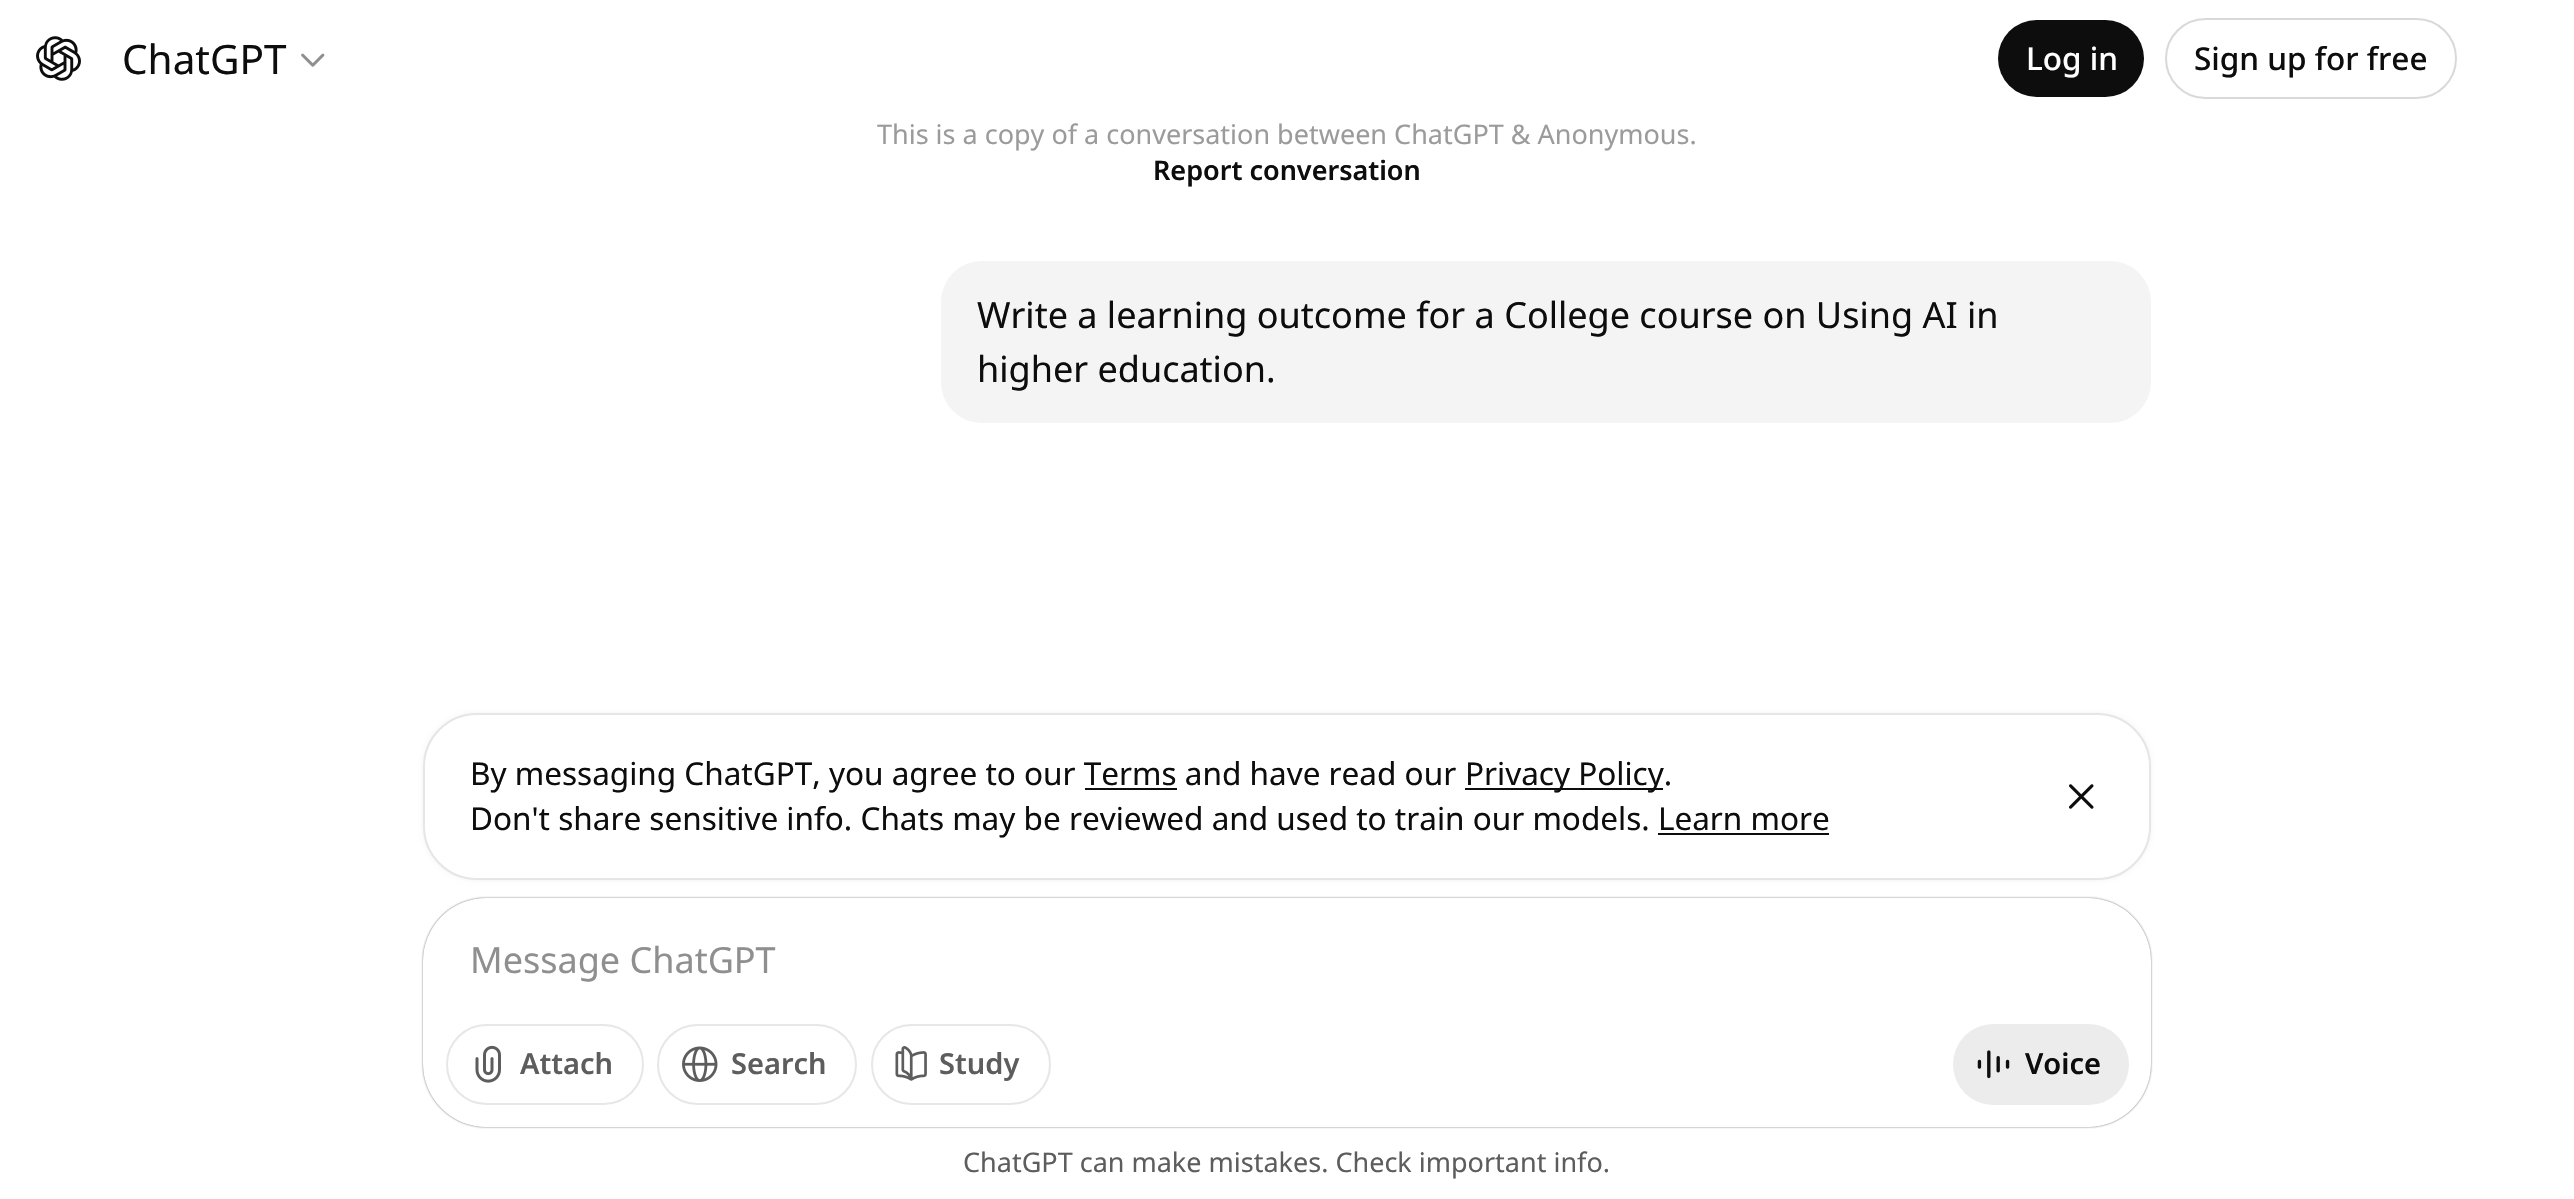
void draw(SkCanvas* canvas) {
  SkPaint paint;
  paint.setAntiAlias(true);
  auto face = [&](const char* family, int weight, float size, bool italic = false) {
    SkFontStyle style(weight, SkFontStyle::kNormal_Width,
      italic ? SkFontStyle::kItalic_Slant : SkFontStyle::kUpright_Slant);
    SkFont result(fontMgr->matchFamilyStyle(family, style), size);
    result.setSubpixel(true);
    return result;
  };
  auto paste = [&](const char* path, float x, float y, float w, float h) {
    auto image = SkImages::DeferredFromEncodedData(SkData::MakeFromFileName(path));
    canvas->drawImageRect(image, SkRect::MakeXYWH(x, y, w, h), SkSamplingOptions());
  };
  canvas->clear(0xffffffff);
  paste("img/1.png", 36, 36, 45, 45);
  paste("img/2.png", 301, 53, 24, 14);
  paint.setColor(0xff0d0d0d);
  canvas->drawRoundRect(SkRect::MakeXYWH(1998, 20, 146, 77), 38.5f, 38.5f, paint);
  paint.setStroke(true);
  paint.setStrokeWidth(2);
  paint.setColor(0xffd9d9d9);
  canvas->drawRoundRect(SkRect::MakeXYWH(2166, 19, 290, 79), 39.5f, 39.5f, paint);
  paint.setStroke(false);
  paint.setColor(0xfff4f4f4);
  canvas->drawRoundRect(SkRect::MakeXYWH(941, 261, 1210, 162), 41, 41, paint);
  paint.setColor(0x0d000000);
  paint.setMaskFilter(SkMaskFilter::MakeBlur(kNormal_SkBlurStyle, 2));
  canvas->drawRoundRect(SkRect::MakeXYWH(423, 713, 1728, 167), 54, 54, paint);
  paint.setMaskFilter(nullptr);
  paint.setColor(0xffffffff);
  canvas->drawRoundRect(SkRect::MakeXYWH(423, 713, 1728, 167), 54, 54, paint);
  paint.setStroke(true);
  paint.setColor(0x1a0d0d0d);
  canvas->drawRoundRect(SkRect::MakeXYWH(424, 714, 1726, 165), 53, 53, paint);
  paint.setStroke(false);
  {
    const struct { float x, y, w, h; SkColor color; } items[] = {
      {1085, 788, 92, 2, 0xff0d0d0d},
      {1465, 788, 198, 2, 0xff0d0d0d},
      {1658, 833, 171, 2, 0xff0d0d0d},
    };
    for (auto [x, y, w, h, color] : items) {
      paint.setColor(color);
      canvas->drawRect(SkRect::MakeXYWH(x, y, w, h), paint);
    }
  }
  paste("img/3.png", 2069, 784, 25, 25);
  paint.setColor(0x9e000000);
  paint.setMaskFilter(SkMaskFilter::MakeBlur(kNormal_SkBlurStyle, 1));
  canvas->drawRoundRect(SkRect::MakeXYWH(423, 898, 1728, 229), 63, 63, paint);
  paint.setMaskFilter(nullptr);
  paint.setColor(0xffffffff);
  canvas->drawRoundRect(SkRect::MakeXYWH(423, 898, 1728, 229), 63, 63, paint);
  paint.setStroke(true);
  paint.setColor(0xffe7e7e7);
  canvas->drawRoundRect(SkRect::MakeXYWH(447, 1025, 196, 79), 39.5f, 39.5f, paint);
  paste("img/4.png", 475, 1045, 26, 38);
  canvas->drawRoundRect(SkRect::MakeXYWH(658, 1025, 198, 79), 39.5f, 39.5f, paint);
  paste("img/5.png", 682, 1046, 36, 36);
  canvas->drawRoundRect(SkRect::MakeXYWH(872, 1025, 178, 79), 39.5f, 39.5f, paint);
  paste("img/6.png", 895, 1046, 32, 35);
  paint.setStroke(false);
  paint.setColor(0xffececec);
  canvas->drawRoundRect(SkRect::MakeXYWH(1953, 1024, 176, 81), 40.5f, 40.5f, paint);
  paste("img/7.png", 1977, 1050, 33, 29);
  auto f0 = face("Noto Sans", 400, 40.5f);
  paint.setColor(0xff0d0d0d);
  canvas->drawString("ChatGPT", 122, 74, f0, paint);
  auto f1 = face("Noto Sans", 500, 31.5f);
  paint.setColor(0xffffffff);
  canvas->drawString("Log in", 2026, 70, f1, paint);
  paint.setColor(0xff0d0d0d);
  canvas->drawString("Sign up for free", 2194, 70, f1, paint);
  auto f2 = face("Noto Sans", 400, 27);
  paint.setColor(0xff9b9b9b);
  canvas->drawString("This is a copy of a conversation between ChatGPT & Anonymous.", 877, 144, f2, paint);
  auto f3 = face("Noto Sans", 600, 27);
  paint.setColor(0xff0d0d0d);
  canvas->drawString("Report conversation", 1153, 180, f3, paint);
  auto f4 = face("Noto Sans", 400, 36);
  canvas->drawString("Write a learning outcome for a College course on Using AI in", 977, 328, f4, paint);
  canvas->drawString("higher education.", 977, 382, f4, paint);
  auto f5 = face("Noto Sans", 400, 31.5f);
  {
    const struct { const char* s; float x, y; } items[] = {
      {"By messaging ChatGPT, you agree to our Terms and have read our", 470, 785},
      {"Privacy Policy.", 1465, 785},
      {"Don't share sensitive info. Chats may be reviewed and used to train our models. Learn more", 470, 830},
    };
    for (auto [s, x, y] : items) {
      canvas->drawString(s, x, y, f5, paint);
    }
  }
  paint.setColor(0xff8f8f8f);
  canvas->drawString("Message ChatGPT", 470, 973, f4, paint);
  auto f6 = face("Noto Sans", 600, 29);
  paint.setColor(0xff5d5d5d);
  {
    const struct { const char* s; float x, y; } items[] = {
      {"Attach", 520, 1074},
      {"Search", 731, 1074},
      {"Study", 939, 1074},
    };
    for (auto [s, x, y] : items) {
      canvas->drawString(s, x, y, f6, paint);
    }
  }
  paint.setColor(0xff0d0d0d);
  canvas->drawString("Voice", 2025, 1074, f6, paint);
  paint.setColor(0xff5d5d5d);
  canvas->drawString("ChatGPT can make mistakes. Check important info.", 963, 1172, f2, paint);
}
